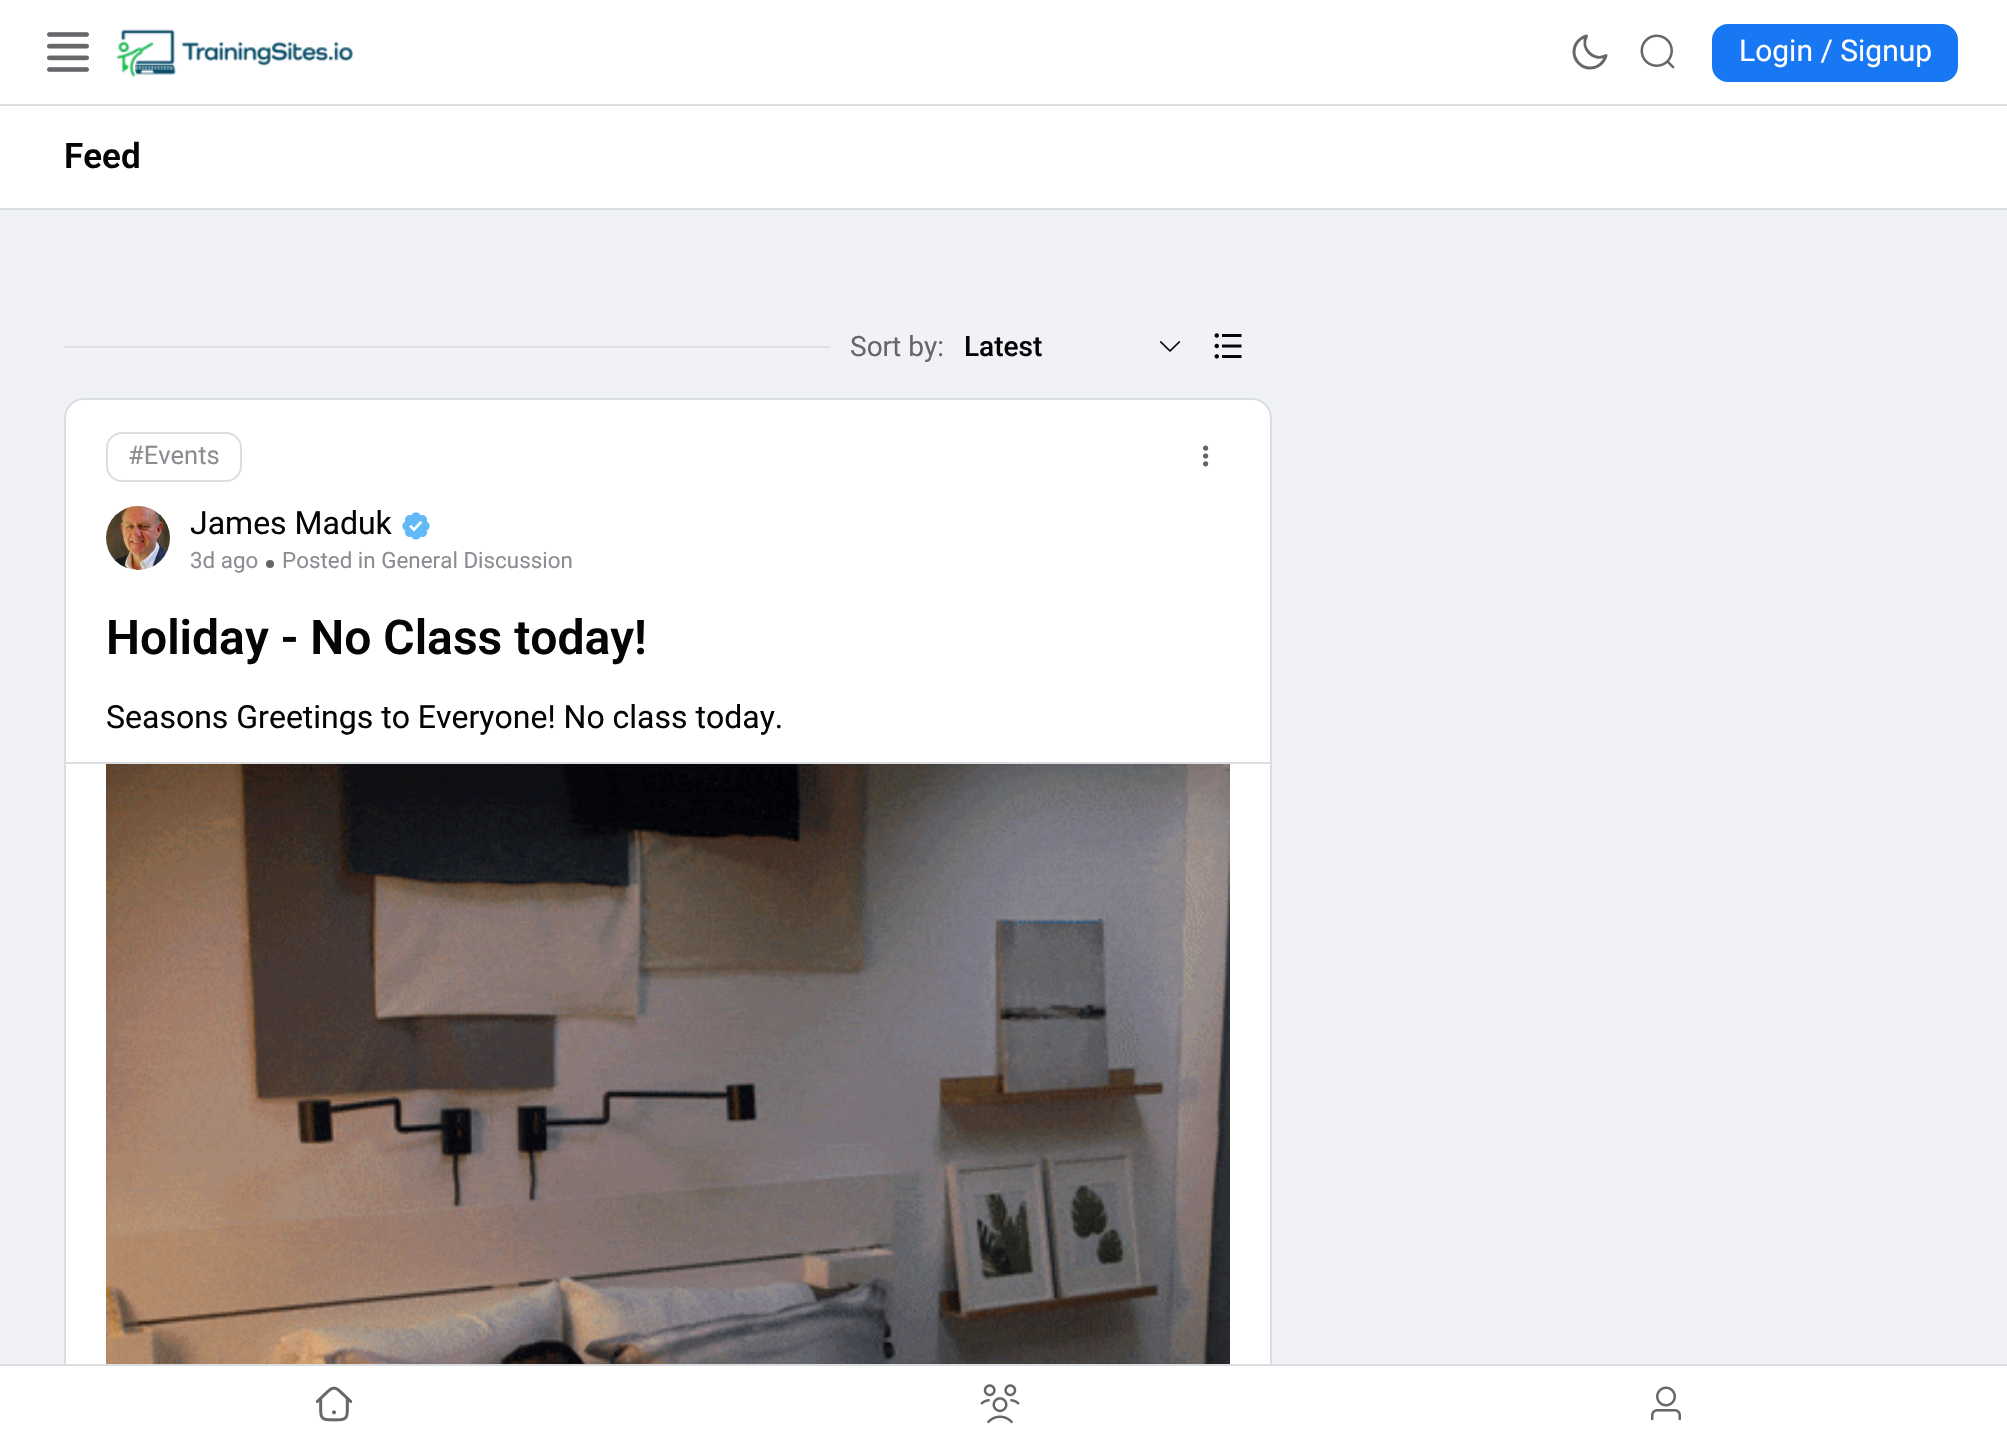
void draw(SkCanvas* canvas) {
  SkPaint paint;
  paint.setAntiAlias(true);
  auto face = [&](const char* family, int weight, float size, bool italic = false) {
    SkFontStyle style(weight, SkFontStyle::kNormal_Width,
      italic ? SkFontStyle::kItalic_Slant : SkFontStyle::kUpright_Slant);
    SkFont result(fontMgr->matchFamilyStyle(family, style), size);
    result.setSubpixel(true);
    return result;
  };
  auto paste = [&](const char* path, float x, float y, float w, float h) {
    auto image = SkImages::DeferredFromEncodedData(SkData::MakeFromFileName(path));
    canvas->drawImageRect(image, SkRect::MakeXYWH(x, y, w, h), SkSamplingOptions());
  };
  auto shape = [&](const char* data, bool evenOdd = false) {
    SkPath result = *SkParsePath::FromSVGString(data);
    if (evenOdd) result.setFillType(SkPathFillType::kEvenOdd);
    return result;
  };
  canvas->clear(0xfff0f2f5);
  paint.setColor(0xffffffff);
  canvas->drawRect(SkRect::MakeXYWH(0, 0, 2007, 104), paint);
  paint.setColor(0xffdadde1);
  canvas->drawRect(SkRect::MakeXYWH(0, 104, 2007, 2), paint);
  paste("img/1.png", 47, 32, 42, 40);
  paste("img/2.png", 116, 29, 237, 48);
  paint.setStroke(true);
  paint.setStrokeWidth(3);
  paint.setStrokeCap(SkPaint::kRound_Cap);
  paint.setStrokeJoin(SkPaint::kRound_Join);
  paint.setColor(0xff65676b);
  canvas->drawPath(shape("M1606 55.5C1593.5 62 1580 48.5 1586.5 36C1579.5 38 1574 44 1574 52C1574 60.5 1581.5 68 1590 68C1598 68 1604 62.5 1606 55.5Z"), paint);
  paste("img/3.png", 1640, 34, 35, 35);
  paint.setStroke(false);
  paint.setColor(0xff1877f2);
  canvas->drawRoundRect(SkRect::MakeXYWH(1713, 25, 244, 56), 15, 15, paint);
  paint.setStroke(true);
  paint.setStrokeWidth(2);
  paint.setStrokeCap(SkPaint::kButt_Cap);
  paint.setStrokeJoin(SkPaint::kMiter_Join);
  canvas->drawRoundRect(SkRect::MakeXYWH(1713, 25, 244, 56), 15, 15, paint);
  paint.setStroke(false);
  {
    const struct { float x, y, w, h; SkColor color; } items[] = {
      {0, 106, 2007, 102, 0xffffffff},
      {0, 208, 2007, 2, 0xffdadde1},
      {64, 346, 766, 2, 0xffdfe1e5},
    };
    for (auto [x, y, w, h, color] : items) {
      paint.setColor(color);
      canvas->drawRect(SkRect::MakeXYWH(x, y, w, h), paint);
    }
  }
  paste("img/4.png", 1159, 341, 22, 11);
  paste("img/5.png", 1214, 333, 28, 26);
  paint.setColor(0xffffffff);
  canvas->drawPath(shape("M84 398H1252C1263 398 1272 407 1272 418V1436H64V418C64 407 73 398 84 398Z"), paint);
  paint.setStroke(true);
  paint.setColor(0xffdadde1);
  canvas->drawRoundRect(SkRect::MakeXYWH(65, 399, 1206, 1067), 19, 19, paint);
  canvas->drawRoundRect(SkRect::MakeXYWH(107, 433, 134, 48), 15, 15, paint);
  paste("img/6.png", 1203, 445, 6, 22);
  paste("img/7.png", 106, 506, 64, 64);
  paste("img/8.png", 402, 512, 28, 28);
  paint.setStroke(false);
  paint.setColor(0xff65676b);
  canvas->drawCircle(270, 564, 4, paint);
  paint.setColor(0xffdadde1);
  canvas->drawRect(SkRect::MakeXYWH(66, 762, 1204, 2), paint);
  paste("img/9.png", 106, 764, 1124, 600);
  paint.setColor(0xffffffff);
  canvas->drawRect(SkRect::MakeXYWH(0, 1366, 2007, 79), paint);
  paint.setColor(0xffdadde1);
  canvas->drawRect(SkRect::MakeXYWH(0, 1364, 2007, 2), paint);
  paste("img/10.png", 315, 1386, 38, 36);
  paste("img/11.png", 980, 1384, 40, 40);
  paste("img/12.png", 1651, 1386, 30, 35);
  auto f0 = face("Roboto", 400, 30);
  paint.setColor(0xffffffff);
  canvas->drawString("Login / Signup", 1739, 61, f0, paint);
  auto f1 = face("Roboto", 600, 35);
  paint.setColor(0xff050505);
  canvas->drawString("Feed", 64, 168, f1, paint);
  auto f2 = face("Roboto", 400, 28);
  paint.setColor(0xff65676b);
  canvas->drawString("Sort by:", 850, 356, f2, paint);
  auto f3 = face("Roboto", 500, 28);
  paint.setColor(0xff050505);
  canvas->drawString("Latest", 964, 356, f3, paint);
  auto f4 = face("Roboto", 400, 25.5f);
  paint.setColor(0xff8a8d91);
  canvas->drawString("#Events", 128, 464, f4, paint);
  auto f5 = face("Roboto", 400, 32);
  paint.setColor(0xff050505);
  canvas->drawString("James Maduk", 190, 534, f5, paint);
  auto f6 = face("Roboto", 400, 22.4f);
  paint.setColor(0xff8a8d91);
  canvas->drawString("3d ago", 190, 568, f6, paint);
  canvas->drawString("Posted in General Discussion", 282, 568, f6, paint);
  auto f7 = face("Roboto", 600, 48);
  paint.setColor(0xff050505);
  canvas->drawString("Holiday - No Class today!", 106, 654, f7, paint);
  canvas->drawString("Seasons Greetings to Everyone! No class today.", 106, 728, f5, paint);
}
